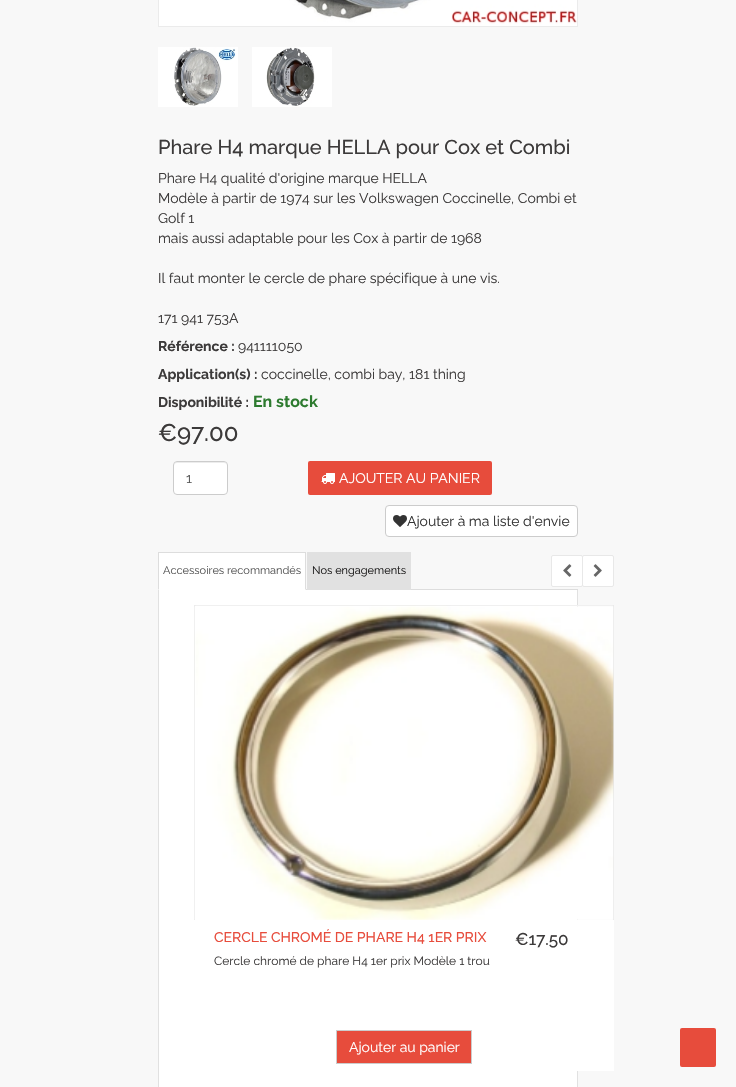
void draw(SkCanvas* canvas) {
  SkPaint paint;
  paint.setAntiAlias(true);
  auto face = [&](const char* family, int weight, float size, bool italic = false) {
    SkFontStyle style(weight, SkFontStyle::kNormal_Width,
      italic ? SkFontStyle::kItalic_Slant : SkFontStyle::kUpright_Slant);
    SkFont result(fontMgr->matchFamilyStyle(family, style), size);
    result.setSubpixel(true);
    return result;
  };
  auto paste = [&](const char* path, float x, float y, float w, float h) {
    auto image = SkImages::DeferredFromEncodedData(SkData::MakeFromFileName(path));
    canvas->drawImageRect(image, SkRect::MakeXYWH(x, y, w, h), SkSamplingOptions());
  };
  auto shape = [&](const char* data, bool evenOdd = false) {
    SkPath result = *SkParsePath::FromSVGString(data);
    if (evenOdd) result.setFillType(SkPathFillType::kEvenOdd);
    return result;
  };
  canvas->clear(0xfff8f8f8);
  paint.setStroke(true);
  paint.setStrokeWidth(1);
  paint.setColor(0xffebebeb);
  canvas->drawRect(SkRect::MakeXYWH(158.5f, -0.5f, 419, 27), paint);
  paste("img/1.png", 159, 0, 418, 26);
  paste("img/2.png", 158, 47, 80, 60);
  paste("img/3.png", 252, 47, 80, 60);
  paint.setStroke(false);
  paint.setColor(0xffffffff);
  canvas->drawRoundRect(SkRect::MakeXYWH(173, 461, 55, 34), 4, 4, paint);
  paint.setColor(0xffececec);
  canvas->drawPath(shape("M177 463H224C226 463 227 464 227 466C227 460 221 462 216 462H185C180 462 174 460 174 466C174 464 175 463 177 463Z"), paint);
  paint.setStroke(true);
  paint.setColor(0xffcccccc);
  canvas->drawRoundRect(SkRect::MakeXYWH(173.5f, 461.5f, 54, 33), 3.5f, 3.5f, paint);
  paint.setStroke(false);
  paint.setColor(0xffe74c3c);
  canvas->drawRoundRect(SkRect::MakeXYWH(308, 461, 184, 34), 2, 2, paint);
  paste("img/4.png", 321, 473, 14, 11);
  paint.setColor(0xffffffff);
  canvas->drawRoundRect(SkRect::MakeXYWH(385.5f, 505.5f, 192, 31), 3.5f, 3.5f, paint);
  paint.setStroke(true);
  paint.setColor(0xffcccccc);
  canvas->drawRoundRect(SkRect::MakeXYWH(385.5f, 505.5f, 192, 31), 3.5f, 3.5f, paint);
  paste("img/5.png", 393, 515, 14, 12);
  paint.setStroke(false);
  {
    const struct { float x, y, w, h; SkColor color; } items[] = {
      {306, 589, 272, 1, 0xffdddddd},
      {158, 553, 148, 37, 0xffffffff},
      {158, 552, 148, 1, 0xffdddddd},
    };
    for (auto [x, y, w, h, color] : items) {
      paint.setColor(color);
      canvas->drawRect(SkRect::MakeXYWH(x, y, w, h), paint);
    }
  }
  canvas->drawPath(shape("M306 552V590L305 589V553Z"), paint);
  canvas->drawPath(shape("M158 590V552L159 553V589Z"), paint);
  {
    const struct { float x, y, w, h; SkColor color; } items[] = {
      {307, 552, 104, 38, 0xffe1e1e1},
      {159, 590, 418, 497, 0xffffffff},
      {577, 590, 1, 497, 0xffe1e1e1},
      {158, 590, 1, 497, 0xffe1e1e1},
    };
    for (auto [x, y, w, h, color] : items) {
      paint.setColor(color);
      canvas->drawRect(SkRect::MakeXYWH(x, y, w, h), paint);
    }
  }
  paint.setColor(0xffffffff);
  canvas->drawRoundRect(SkRect::MakeXYWH(551.5f, 555.5f, 31, 31), 1.5f, 1.5f, paint);
  paint.setStroke(true);
  paint.setColor(0xffe8e8e8);
  canvas->drawRoundRect(SkRect::MakeXYWH(551.5f, 555.5f, 31, 31), 1.5f, 1.5f, paint);
  paste("img/6.png", 563, 564, 9, 13);
  paint.setStroke(false);
  paint.setColor(0xffffffff);
  canvas->drawRoundRect(SkRect::MakeXYWH(582.5f, 555.5f, 31, 31), 1.5f, 1.5f, paint);
  paint.setStroke(true);
  paint.setColor(0xffe8e8e8);
  canvas->drawRoundRect(SkRect::MakeXYWH(582.5f, 555.5f, 31, 31), 1.5f, 1.5f, paint);
  paste("img/7.png", 593, 564, 9, 13);
  paint.setStroke(false);
  {
    const struct { float x, y, w, h; SkColor color; } items[] = {
      {194, 605, 420, 1, 0xffe8e8e8},
      {194, 605, 1, 315, 0xffe8e8e8},
      {613, 605, 1, 315, 0xffe8e8e8},
    };
    for (auto [x, y, w, h, color] : items) {
      paint.setColor(color);
      canvas->drawRect(SkRect::MakeXYWH(x, y, w, h), paint);
    }
  }
  paste("img/8.png", 194, 605, 420, 315);
  paint.setColor(0xffffffff);
  canvas->drawRect(SkRect::MakeXYWH(577, 920, 37, 151), paint);
  paint.setColor(0xffe74c3c);
  canvas->drawRect(SkRect::MakeXYWH(336.5f, 1030.5f, 135, 33), paint);
  paint.setStroke(true);
  paint.setColor(0xffcccccc);
  canvas->drawRect(SkRect::MakeXYWH(336.5f, 1030.5f, 135, 33), paint);
  paint.setStroke(false);
  paint.setColor(0xffe74c3c);
  canvas->drawRoundRect(SkRect::MakeXYWH(680, 1028, 36, 39), 2, 2, paint);
  auto f0 = face("Raleway", 500, 20);
  paint.setColor(0xff3c3a3a);
  canvas->drawString("Phare H4 marque HELLA pour Cox et Combi", 158, 154, f0, paint);
  auto f1 = face("Raleway", 400, 14);
  {
    const struct { const char* s; float x, y; } items[] = {
      {"Phare H4 qualité d'origine marque HELLA", 158, 183},
      {"Modèle à partir de 1974 sur les Volkswagen Coccinelle, Combi et", 158, 203},
      {"Golf 1", 158, 223},
      {"mais aussi adaptable pour les Cox à partir de 1968", 158, 243},
      {"Il faut monter le cercle de phare spécifique à une vis.", 158, 283},
      {"171 941 753A", 158, 323},
    };
    for (auto [s, x, y] : items) {
      canvas->drawString(s, x, y, f1, paint);
    }
  }
  auto f2 = face("Raleway", 700, 14);
  canvas->drawString("Référence :", 158, 351, f2, paint);
  canvas->drawString("941111050", 238, 351, f1, paint);
  canvas->drawString("Application(s) :", 158, 379, f2, paint);
  canvas->drawString("coccinelle, combi bay, 181 thing", 261, 379, f1, paint);
  canvas->drawString("Disponibilité :", 158, 407, f2, paint);
  auto f3 = face("Raleway", 700, 16);
  paint.setColor(0xff2d7b2f);
  canvas->drawString("En stock", 253, 407, f3, paint);
  auto f4 = face("Raleway", 500, 24);
  paint.setColor(0xff3c3a3a);
  canvas->drawString("€97.00", 158, 441, f4, paint);
  paint.setColor(0xff555555);
  canvas->drawString("1", 186, 483, f1, paint);
  paint.setColor(0xffffffff);
  canvas->drawString("AJOUTER AU PANIER", 339, 483, f1, paint);
  paint.setColor(0xff333333);
  canvas->drawString("Ajouter à ma liste d'envie", 407, 526, f1, paint);
  auto f5 = face("Raleway", 400, 11);
  paint.setColor(0xff555555);
  canvas->drawString("Accessoires recommandés", 163, 574, f5, paint);
  paint.setColor(0xff171616);
  canvas->drawString("Nos engagements", 312, 574, f5, paint);
  auto f6 = face("Raleway", 500, 14);
  paint.setColor(0xffe74c3c);
  canvas->drawString("CERCLE CHROMÉ DE PHARE H4 1ER PRIX", 214, 942, f6, paint);
  auto f7 = face("Raleway", 400, 12);
  paint.setColor(0xff3c3a3a);
  canvas->drawString("Cercle chromé de phare H4 1er prix Modèle 1 trou", 214, 965, f7, paint);
  auto f8 = face("Raleway", 500, 17);
  canvas->drawString("€17.50", 515, 945, f8, paint);
  paint.setColor(0xffffffff);
  canvas->drawString("Ajouter au panier", 349, 1052, f1, paint);
}
